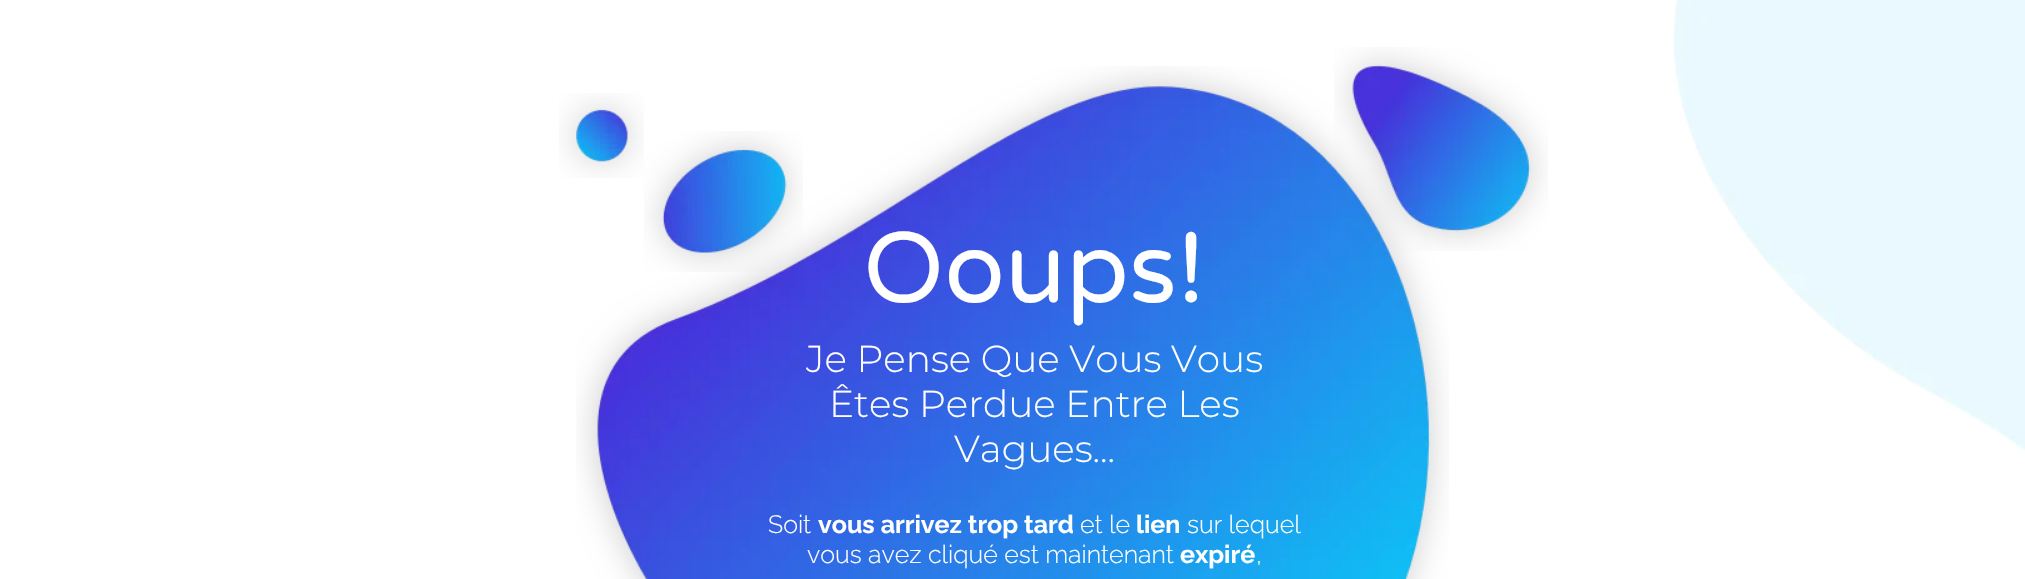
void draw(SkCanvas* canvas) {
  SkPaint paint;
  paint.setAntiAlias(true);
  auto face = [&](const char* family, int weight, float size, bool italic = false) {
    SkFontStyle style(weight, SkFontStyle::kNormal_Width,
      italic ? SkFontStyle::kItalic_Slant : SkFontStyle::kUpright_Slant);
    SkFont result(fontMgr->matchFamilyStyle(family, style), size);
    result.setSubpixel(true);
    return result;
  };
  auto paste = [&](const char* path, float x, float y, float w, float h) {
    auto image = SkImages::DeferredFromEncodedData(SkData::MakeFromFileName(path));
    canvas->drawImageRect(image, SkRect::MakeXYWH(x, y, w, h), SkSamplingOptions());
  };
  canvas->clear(0xffffffff);
  paste("img/4.png", 576, 66, 873, 513);
  paste("img/1.png", 559, 93, 85, 85);
  paste("img/2.png", 644, 131, 159, 141);
  paste("img/3.png", 1334, 47, 214, 204);
  paste("img/5.png", 1673, 0, 352, 451);
  auto f0 = face("Varela Round", 400, 100);
  paint.setColor(0xffffffff);
  canvas->drawString("Ooups!", 863, 302, f0, paint);
  auto f1 = face("Montserrat", 300, 37.5f);
  {
    const struct { const char* s; float x, y; } items[] = {
      {"Je Pense Que Vous Vous", 806, 372},
      {"Êtes Perdue Entre Les", 829, 417},
      {"Vagues...", 954, 462},
    };
    for (auto [s, x, y] : items) {
      canvas->drawString(s, x, y, f1, paint);
    }
  }
  auto f2 = face("Raleway", 300, 25);
  canvas->drawString("Soit", 768, 533, f2, paint);
  auto f3 = face("Raleway", 700, 25);
  canvas->drawString("vous arrivez trop tard", 818, 533, f3, paint);
  canvas->drawString("et le", 1080, 533, f2, paint);
  canvas->drawString("lien", 1136, 533, f3, paint);
  canvas->drawString("sur lequel", 1187, 533, f2, paint);
  canvas->drawString("vous avez cliqué est maintenant", 807, 563, f2, paint);
  canvas->drawString("expiré", 1180, 563, f3, paint);
  canvas->drawString(",", 1256, 563, f2, paint);
}
